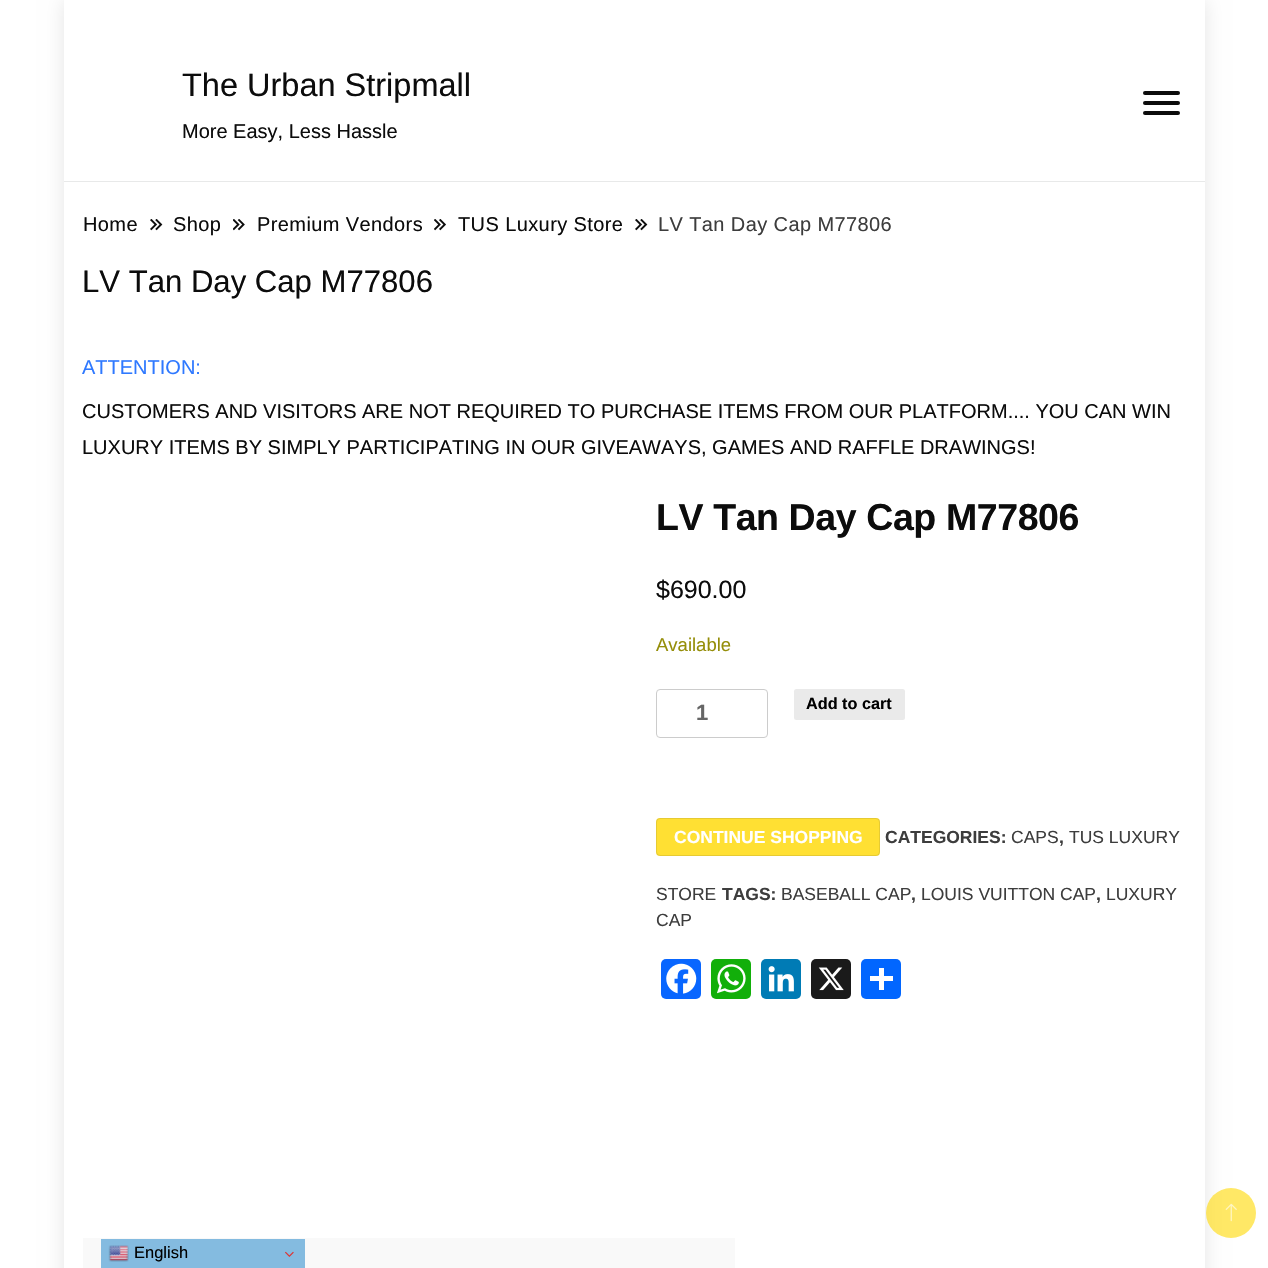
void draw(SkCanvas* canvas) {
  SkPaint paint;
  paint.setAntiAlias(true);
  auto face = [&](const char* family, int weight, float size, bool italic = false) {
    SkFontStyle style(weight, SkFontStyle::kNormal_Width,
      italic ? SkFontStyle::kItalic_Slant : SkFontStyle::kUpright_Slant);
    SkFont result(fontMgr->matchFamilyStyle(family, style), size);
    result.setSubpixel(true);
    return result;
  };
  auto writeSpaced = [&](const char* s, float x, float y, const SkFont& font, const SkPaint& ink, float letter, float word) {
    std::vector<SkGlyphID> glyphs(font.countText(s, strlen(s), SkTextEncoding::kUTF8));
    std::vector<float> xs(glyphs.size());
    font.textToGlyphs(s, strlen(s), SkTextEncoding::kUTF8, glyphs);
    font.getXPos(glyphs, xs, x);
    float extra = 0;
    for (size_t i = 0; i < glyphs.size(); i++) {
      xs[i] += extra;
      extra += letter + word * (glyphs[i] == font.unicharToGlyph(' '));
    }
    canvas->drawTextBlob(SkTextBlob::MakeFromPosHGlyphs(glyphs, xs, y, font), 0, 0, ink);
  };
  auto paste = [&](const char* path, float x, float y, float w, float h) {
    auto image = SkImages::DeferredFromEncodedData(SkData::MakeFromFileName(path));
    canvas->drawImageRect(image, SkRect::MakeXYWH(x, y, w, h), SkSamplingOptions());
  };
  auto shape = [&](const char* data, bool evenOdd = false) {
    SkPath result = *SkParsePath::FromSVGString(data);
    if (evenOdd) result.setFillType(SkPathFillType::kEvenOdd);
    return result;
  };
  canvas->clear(0xffffffff);
  canvas->save();
  canvas->clipPath(shape("M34 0H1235V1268H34ZM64 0H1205V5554H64Z", true), true);
  paint.setColor(0x1a000000);
  paint.setMaskFilter(SkMaskFilter::MakeBlur(kNormal_SkBlurStyle, 9.5f));
  canvas->drawRect(SkRect::MakeXYWH(64, 0, 1141, 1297), paint);
  paint.setMaskFilter(nullptr);
  canvas->restore();
  paint.setColor(0xffe8e9e9);
  canvas->drawRect(SkRect::MakeXYWH(64, 181, 1141, 1), paint);
  paint.setColor(0xff0c0c0c);
  canvas->drawRoundRect(SkRect::MakeXYWH(1143, 91, 37, 4), 2, 2, paint);
  canvas->drawRoundRect(SkRect::MakeXYWH(1143, 101, 37, 4), 2, 2, paint);
  canvas->drawRoundRect(SkRect::MakeXYWH(1143, 111, 37, 4), 2, 2, paint);
  paste("img/1.png", 150, 219, 13, 12);
  paste("img/2.png", 233, 219, 12, 12);
  paste("img/3.png", 434, 219, 12, 12);
  paste("img/1.png", 635, 219, 13, 12);
  paint.setStroke(true);
  paint.setStrokeWidth(1);
  paint.setColor(0xffcccccc);
  canvas->drawRoundRect(SkRect::MakeXYWH(656.5f, 689.5f, 111, 48), 3.5f, 3.5f, paint);
  paint.setStroke(false);
  paint.setColor(0xffeaeaea);
  canvas->drawRoundRect(SkRect::MakeXYWH(794, 689, 111, 31), 2.5f, 2.5f, paint);
  paint.setColor(0xffffe033);
  canvas->drawRoundRect(SkRect::MakeXYWH(656, 818, 224, 38), 4, 4, paint);
  paint.setStroke(true);
  paint.setColor(0x1f333333);
  canvas->drawRoundRect(SkRect::MakeXYWH(656.5f, 818.5f, 223, 37), 3.5f, 3.5f, paint);
  paint.setStroke(false);
  paint.setColor(0xff0866ff);
  canvas->drawRoundRect(SkRect::MakeXYWH(661, 959, 40, 40), 5, 5, paint);
  paste("img/4.png", 666, 963, 31, 31);
  paint.setColor(0xff12af0a);
  canvas->drawRoundRect(SkRect::MakeXYWH(711, 959, 40, 40), 5, 5, paint);
  paste("img/5.png", 717, 964, 29, 30);
  paint.setColor(0xff007bb5);
  canvas->drawRoundRect(SkRect::MakeXYWH(761, 959, 40, 40), 5, 5, paint);
  paste("img/6.png", 768, 966, 26, 26);
  paint.setColor(0xff1a1a1a);
  canvas->drawRoundRect(SkRect::MakeXYWH(811, 959, 40, 40), 5, 5, paint);
  paste("img/7.png", 818, 967, 26, 24);
  paint.setColor(0xff0166ff);
  canvas->drawRoundRect(SkRect::MakeXYWH(861, 959, 40, 40), 5, 5, paint);
  {
    const struct { float x, y, w, h; SkColor color; } items[] = {
      {879, 968, 5, 22, 0xffffffff},
      {870, 976, 23, 5, 0xffffffff},
      {83, 1238, 652, 30, 0xfff9f9f9},
    };
    for (auto [x, y, w, h, color] : items) {
      paint.setColor(color);
      canvas->drawRect(SkRect::MakeXYWH(x, y, w, h), paint);
    }
  }
  paint.setColor(0x99ffd800);
  canvas->drawCircle(1231, 1213, 25, paint);
  paste("img/8.png", 1225, 1203, 12, 19);
  paint.setColor(0xff84bbe0);
  canvas->drawRect(SkRect::MakeXYWH(101, 1239, 204, 29), paint);
  paste("img/9.png", 108, 1245, 21, 17);
  paste("img/10.png", 285, 1251, 9, 6);
  auto f0 = face("Liberation Sans", 400, 32.5f);
  paint.setColor(0xff0c0c0c);
  canvas->drawString("The Urban Stripmall", 182, 96, f0, paint);
  auto f1 = face("Liberation Sans", 400, 20);
  canvas->drawString("More Easy, Less Hassle", 182, 138, f1, paint);
  {
    const struct { const char* s; float x, y; } items[] = {
      {"Home", 83, 231},
      {"Shop", 173, 231},
      {"Premium Vendors", 257, 231},
      {"TUS Luxury Store", 458, 231},
    };
    for (auto [s, x, y] : items) {
      writeSpaced(s, x, y, f1, paint, 0.4f, 0);
    }
  }
  paint.setColor(0xff3d3d3d);
  writeSpaced("LV Tan Day Cap M77806", 658, 231, f1, paint, 0.4f, 0);
  auto f2 = face("Liberation Sans", 400, 31.1f);
  paint.setColor(0xff0c0c0c);
  canvas->drawString("LV Tan Day Cap M77806", 82, 292, f2, paint);
  paint.setColor(0xff2f79ff);
  canvas->drawString("ATTENTION:", 82, 374, f1, paint);
  paint.setColor(0xff0c0c0c);
  canvas->drawString("CUSTOMERS AND VISITORS ARE NOT REQUIRED TO PURCHASE ITEMS FROM OUR PLATFORM.... YOU CAN WIN", 82, 418, f1, paint);
  canvas->drawString("LUXURY ITEMS BY SIMPLY PARTICIPATING IN OUR GIVEAWAYS, GAMES AND RAFFLE DRAWINGS!", 82, 454, f1, paint);
  auto f3 = face("Liberation Sans", 700, 37.5f);
  writeSpaced("LV Tan Day Cap M77806", 656, 530, f3, paint, -0.4f, 0);
  auto f4 = face("Liberation Sans", 400, 25);
  canvas->drawString("$690.00", 656, 598, f4, paint);
  auto f5 = face("Liberation Sans", 400, 18.5f);
  paint.setColor(0xff958e09);
  canvas->drawString("Available", 656, 651, f5, paint);
  auto f6 = face("Liberation Sans", 700, 22);
  paint.setColor(0xff666666);
  canvas->drawString("1", 696, 720, f6, paint);
  auto f7 = face("Liberation Sans", 700, 16.25f);
  paint.setColor(0xff000000);
  canvas->drawString("Add to cart", 806, 709, f7, paint);
  auto f8 = face("Liberation Sans", 700, 17.5f);
  paint.setColor(0xffffffff);
  canvas->drawString("CONTINUE SHOPPING", 674, 843, f8, paint);
  paint.setColor(0xff3d3d3d);
  canvas->drawString("CATEGORIES:", 885, 843, f8, paint);
  auto f9 = face("Liberation Sans", 400, 17.5f);
  canvas->drawString("CAPS", 1011, 843, f9, paint);
  canvas->drawString(",", 1059, 843, f8, paint);
  canvas->drawString("TUS LUXURY", 1069, 843, f9, paint);
  canvas->drawString("STORE", 656, 900, f9, paint);
  canvas->drawString("TAGS:", 722, 900, f8, paint);
  canvas->drawString("BASEBALL CAP", 781, 900, f9, paint);
  canvas->drawString(",", 911, 900, f8, paint);
  canvas->drawString("LOUIS VUITTON CAP", 921, 900, f9, paint);
  canvas->drawString(",", 1096, 900, f8, paint);
  canvas->drawString("LUXURY", 1106, 900, f9, paint);
  canvas->drawString("CAP", 656, 926, f9, paint);
  auto f10 = face("Liberation Sans", 400, 16.5f);
  paint.setColor(0xff000000);
  canvas->drawString("English", 134, 1258, f10, paint);
}
